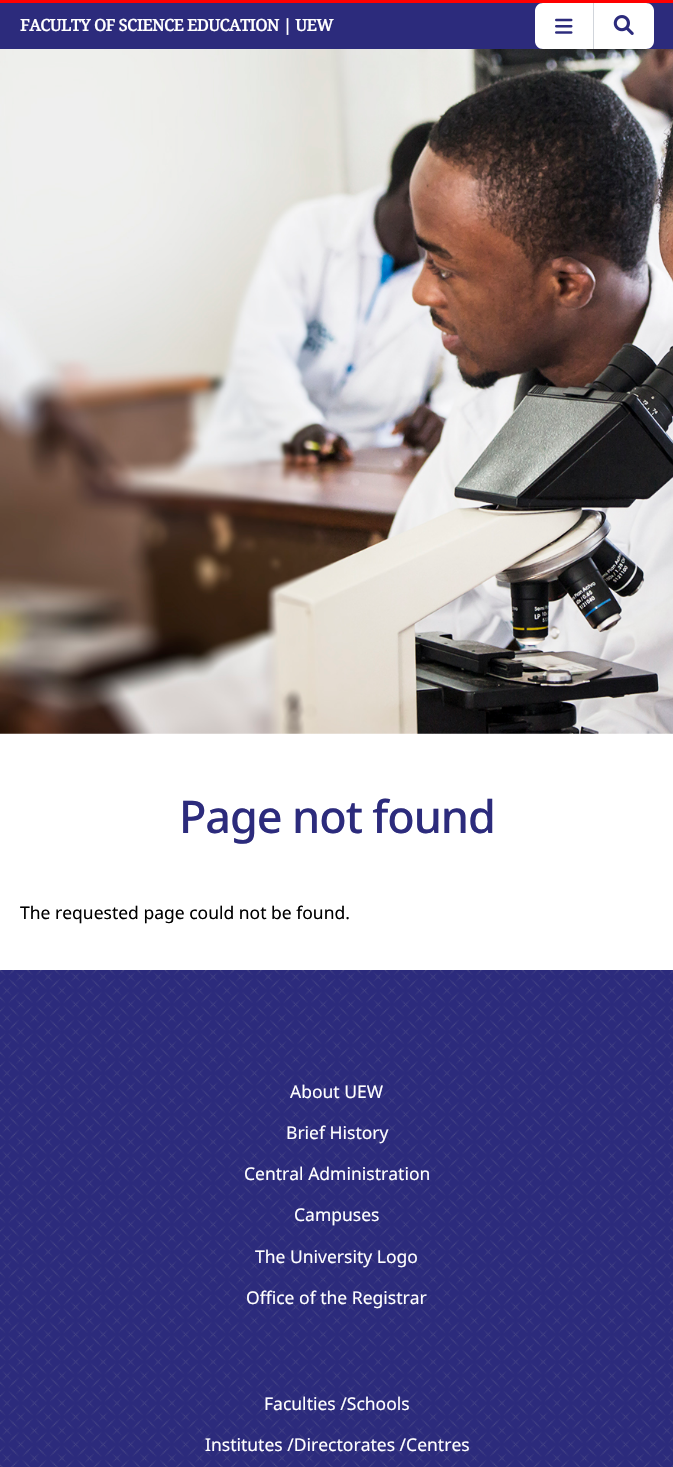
void draw(SkCanvas* canvas) {
  SkPaint paint;
  paint.setAntiAlias(true);
  auto face = [&](const char* family, int weight, float size, bool italic = false) {
    SkFontStyle style(weight, SkFontStyle::kNormal_Width,
      italic ? SkFontStyle::kItalic_Slant : SkFontStyle::kUpright_Slant);
    SkFont result(fontMgr->matchFamilyStyle(family, style), size);
    result.setSubpixel(true);
    return result;
  };
  auto writeSpaced = [&](const char* s, float x, float y, const SkFont& font, const SkPaint& ink, float letter, float word) {
    std::vector<SkGlyphID> glyphs(font.countText(s, strlen(s), SkTextEncoding::kUTF8));
    std::vector<float> xs(glyphs.size());
    font.textToGlyphs(s, strlen(s), SkTextEncoding::kUTF8, glyphs);
    font.getXPos(glyphs, xs, x);
    float extra = 0;
    for (size_t i = 0; i < glyphs.size(); i++) {
      xs[i] += extra;
      extra += letter + word * (glyphs[i] == font.unicharToGlyph(' '));
    }
    canvas->drawTextBlob(SkTextBlob::MakeFromPosHGlyphs(glyphs, xs, y, font), 0, 0, ink);
  };
  auto paste = [&](const char* path, float x, float y, float w, float h) {
    auto image = SkImages::DeferredFromEncodedData(SkData::MakeFromFileName(path));
    canvas->drawImageRect(image, SkRect::MakeXYWH(x, y, w, h), SkSamplingOptions());
  };
  auto shape = [&](const char* data, bool evenOdd = false) {
    SkPath result = *SkParsePath::FromSVGString(data);
    if (evenOdd) result.setFillType(SkPathFillType::kEvenOdd);
    return result;
  };
  canvas->clear(0xffffffff);
  paint.setColor(0xff2c2b7c);
  canvas->drawRect(SkRect::MakeXYWH(0, 3, 673, 46), paint);
  paint.setColor(0xffff0000);
  canvas->drawRect(SkRect::MakeXYWH(0, 0, 673, 3), paint);
  paint.setColor(0xffffffff);
  canvas->drawPath(shape("M543 3H593V49H543C538.5 49 535 45.5 535 41V11C535 6.5 538.5 3 543 3Z"), paint);
  paste("img/1.png", 555, 18, 18, 16);
  canvas->drawPath(shape("M594 3H646C650.5 3 654 6.5 654 11V41C654 45.5 650.5 49 646 49H594Z"), paint);
  paint.setColor(0xffd1d5db);
  canvas->drawRect(SkRect::MakeXYWH(593, 3, 1, 46), paint);
  paste("img/2.png", 613, 15, 21, 20);
  paste("img/3.png", 0, 49, 673, 685);
  paint.setColor(0xff2c2b7c);
  canvas->drawRect(SkRect::MakeXYWH(0, 970, 673, 497), paint);
  paste("img/4.png", 0, 970, 673, 497);
  auto f0 = face("Noto Serif", 700, 16.25f);
  paint.setColor(0xffffffff);
  writeSpaced("FACULTY OF SCIENCE EDUCATION | UEW", 20, 31, f0, paint, -0.4f, 0);
  auto f1 = face("Noto Sans", 500, 45);
  paint.setColor(0xff2c2b7c);
  writeSpaced("Page not found", 179, 833, f1, paint, -1.1f, 0);
  auto f2 = face("Noto Sans", 400, 17.5f);
  paint.setColor(0xff000000);
  canvas->drawString("The requested page could not be found.", 20, 919, f2, paint);
  paint.setColor(0xffffffff);
  {
    const struct { const char* s; float x, y; } items[] = {
      {"About UEW", 290, 1098},
      {"Brief History", 286, 1139},
      {"Central Administration", 244, 1180},
      {"Campuses", 294, 1221},
      {"The University Logo", 255, 1263},
      {"Office of the Registrar", 246, 1304},
      {"Faculties /Schools", 264, 1410},
      {"Institutes /Directorates /Centres", 205, 1451},
    };
    for (auto [s, x, y] : items) {
      canvas->drawString(s, x, y, f2, paint);
    }
  }
}
